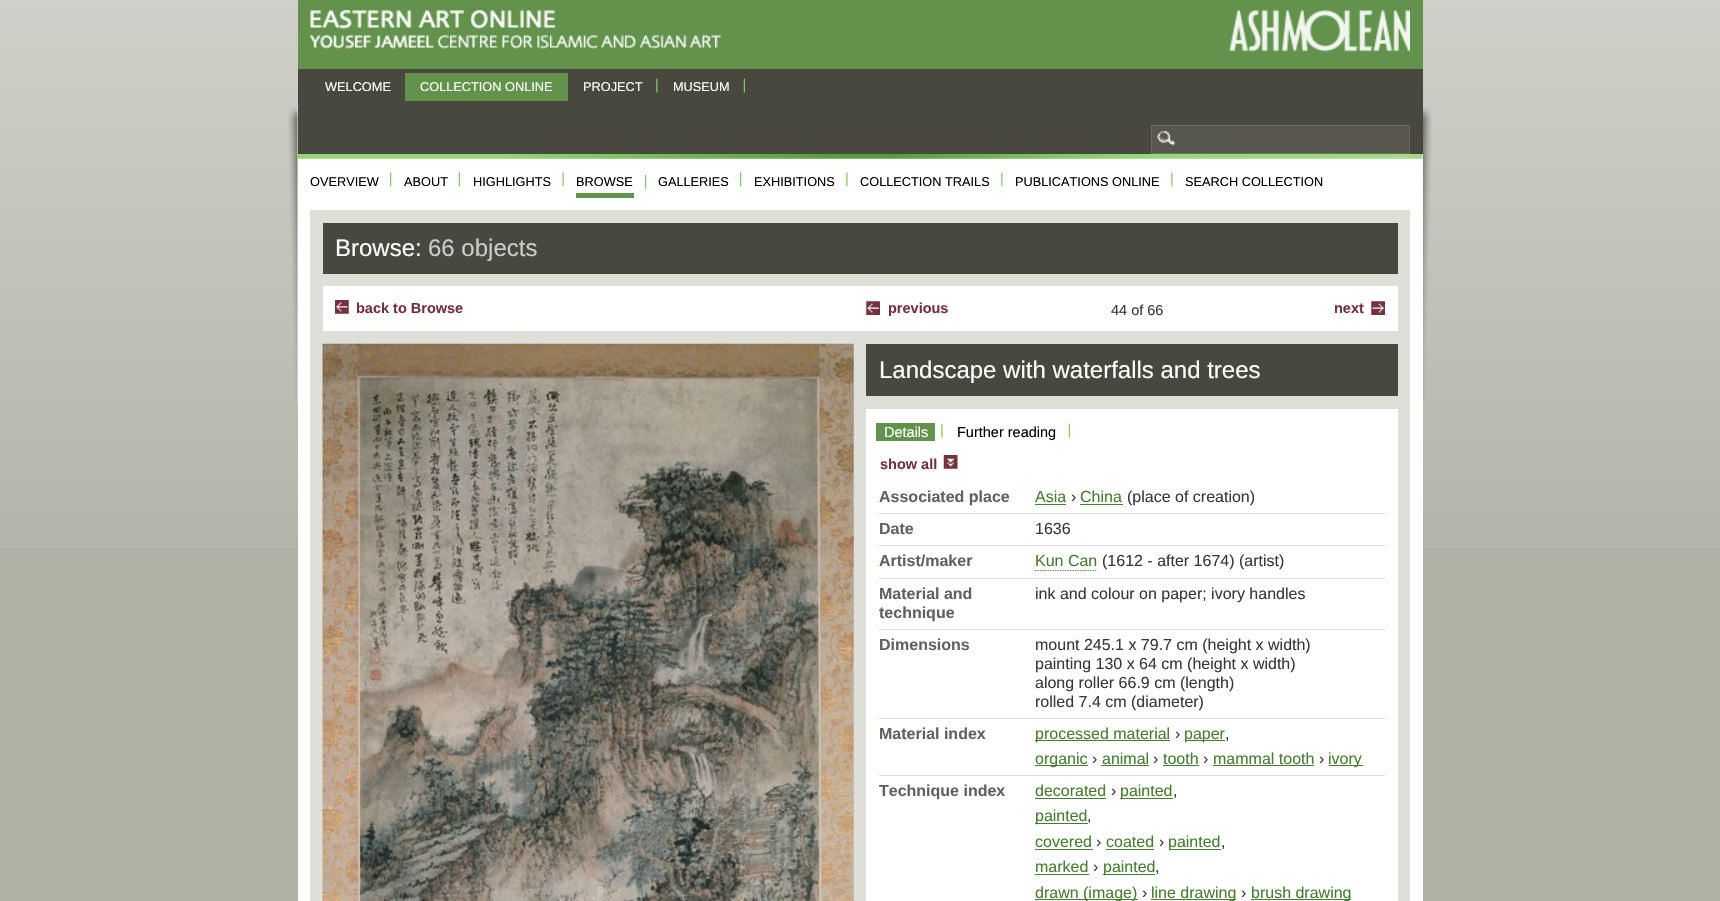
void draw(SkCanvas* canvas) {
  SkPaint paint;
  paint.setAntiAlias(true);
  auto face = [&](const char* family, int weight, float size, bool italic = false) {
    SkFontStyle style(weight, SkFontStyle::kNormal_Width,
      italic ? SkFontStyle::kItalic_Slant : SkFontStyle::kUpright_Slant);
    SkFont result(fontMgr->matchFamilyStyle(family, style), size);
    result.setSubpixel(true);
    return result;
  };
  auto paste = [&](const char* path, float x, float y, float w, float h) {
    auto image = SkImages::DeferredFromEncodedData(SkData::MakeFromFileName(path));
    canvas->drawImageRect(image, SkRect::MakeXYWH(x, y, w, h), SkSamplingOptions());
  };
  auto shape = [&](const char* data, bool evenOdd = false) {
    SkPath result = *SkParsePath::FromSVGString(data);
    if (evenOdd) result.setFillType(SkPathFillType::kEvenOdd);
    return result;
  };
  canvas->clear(0xffb0b0a5);
  paste("img/1.png", 0, 0, 1720, 548);
  paste("img/2.png", 288, 106, 1144, 296);
  paint.setColor(0xff62924c);
  canvas->drawRect(SkRect::MakeXYWH(298, 0, 1125, 69), paint);
  paste("img/3.png", 310, 10, 412, 39);
  paste("img/4.png", 1228, 10, 182, 42);
  paint.setColor(0xffffffff);
  canvas->drawRect(SkRect::MakeXYWH(298, 154, 1125, 747), paint);
  paste("img/8.png", 297, 153, 1126, 6);
  paint.setColor(0xff48483e);
  canvas->drawRect(SkRect::MakeXYWH(298, 69, 1125, 85), paint);
  paint.setColor(0xff62924c);
  canvas->drawRect(SkRect::MakeXYWH(405, 73, 163, 28), paint);
  paste("img/5.png", 656, 78, 2, 15);
  paste("img/6.png", 743, 78, 2, 15);
  paint.setColor(0xff57574e);
  canvas->drawRect(SkRect::MakeXYWH(1152, 126, 257, 27), paint);
  paste("img/7.png", 1157, 131, 19, 15);
  paint.setStroke(true);
  paint.setStrokeWidth(1);
  paint.setColor(0xff6b6b5f);
  canvas->drawRect(SkRect::MakeXYWH(1151.5f, 125.5f, 258, 28), paint);
  paste("img/9.png", 390, 172, 2, 15);
  paste("img/10.png", 458, 172, 2, 15);
  paste("img/11.png", 562, 172, 2, 15);
  paste("img/12.png", 645, 175, 2, 14);
  paint.setStroke(false);
  paint.setColor(0xff62924c);
  canvas->drawRect(SkRect::MakeXYWH(576, 193, 58, 5), paint);
  paste("img/9.png", 740, 172, 2, 15);
  paste("img/13.png", 846, 172, 2, 15);
  paste("img/13.png", 1001, 172, 2, 15);
  paste("img/13.png", 1171, 172, 2, 15);
  {
    const struct { float x, y, w, h; SkColor color; } items[] = {
      {310, 210, 1100, 691, 0xffdfdfda},
      {323, 223, 1075, 51, 0xff48483e},
      {323, 286, 1075, 45, 0xffffffff},
    };
    for (auto [x, y, w, h, color] : items) {
      paint.setColor(color);
      canvas->drawRect(SkRect::MakeXYWH(x, y, w, h), paint);
    }
  }
  paste("img/14.png", 335, 300, 14, 14);
  paste("img/15.png", 866, 301, 14, 14);
  paste("img/16.png", 1371, 301, 14, 14);
  paste("img/17.png", 322, 343, 532, 558);
  canvas->drawRect(SkRect::MakeXYWH(866, 409, 532, 492), paint);
  paint.setColor(0xff48483e);
  canvas->drawRect(SkRect::MakeXYWH(866, 344, 532, 52), paint);
  paste("img/18.png", 941, 423, 2, 15);
  paint.setColor(0xff62924c);
  canvas->drawRect(SkRect::MakeXYWH(876, 423, 59, 18), paint);
  paste("img/19.png", 1068, 423, 2, 15);
  paste("img/20.png", 943, 455, 15, 14);
  {
    const struct { float x, y, w, h; SkColor color; } items[] = {
      {879, 513, 506, 1, 0xffdfdfda},
      {1035, 504, 31, 1, 0xff467d33},
      {1080, 504, 43, 1, 0xff467d33},
      {879, 545, 506, 1, 0xffdfdfda},
      {879, 578, 506, 1, 0xffdfdfda},
    };
    for (auto [x, y, w, h, color] : items) {
      paint.setColor(color);
      canvas->drawRect(SkRect::MakeXYWH(x, y, w, h), paint);
    }
  }
  paint.setStroke(true);
  paint.setStrokeWidth(1.2f);
  paint.setColor(0xff467d33);
  paint.setPathEffect(SkDashPathEffect::Make({{1.25f, 1.25f}}, 0));
  canvas->drawPath(shape("M1035 570.5H1097.5"), paint);
  paint.setPathEffect(nullptr);
  paint.setStroke(false);
  {
    const struct { float x, y, w, h; SkColor color; } items[] = {
      {879, 629, 506, 1, 0xffdfdfda},
      {879, 718, 506, 1, 0xffdfdfda},
      {879, 775, 506, 1, 0xffdfdfda},
      {1035, 740, 135, 1, 0xff467d33},
      {1185, 740, 40, 1, 0xff467d33},
      {1035, 765, 53, 1, 0xff467d33},
      {1101, 765, 48, 1, 0xff467d33},
      {1163, 765, 36, 1, 0xff467d33},
      {1213, 765, 101, 1, 0xff467d33},
      {1329, 765, 34, 1, 0xff467d33},
      {1035, 798, 71, 1, 0xff467d33},
      {1120, 798, 53, 1, 0xff467d33},
      {1035, 823, 53, 1, 0xff467d33},
      {1035, 849, 58, 1, 0xff467d33},
      {1106, 849, 48, 1, 0xff467d33},
      {1169, 849, 52, 1, 0xff467d33},
      {1035, 874, 54, 1, 0xff467d33},
      {1103, 874, 52, 1, 0xff467d33},
      {1035, 899, 103, 1, 0xff467d33},
      {1151, 899, 85, 1, 0xff467d33},
      {1251, 899, 100, 1, 0xff467d33},
    };
    for (auto [x, y, w, h, color] : items) {
      paint.setColor(color);
      canvas->drawRect(SkRect::MakeXYWH(x, y, w, h), paint);
    }
  }
  auto f0 = face("Liberation Sans", 400, 12.75f);
  paint.setColor(0xffffffff);
  {
    const struct { const char* s; float x, y; } items[] = {
      {"WELCOME", 325, 91},
      {"COLLECTION ONLINE", 420, 91},
      {"PROJECT", 583, 91},
      {"MUSEUM", 673, 91},
    };
    for (auto [s, x, y] : items) {
      canvas->drawString(s, x, y, f0, paint);
    }
  }
  paint.setColor(0xff000000);
  {
    const struct { const char* s; float x, y; } items[] = {
      {"OVERVIEW", 310, 186},
      {"ABOUT", 404, 186},
      {"HIGHLIGHTS", 473, 186},
      {"BROWSE", 576, 186},
      {"GALLERIES", 658, 186},
      {"EXHIBITIONS", 754, 186},
      {"COLLECTION TRAILS", 860, 186},
      {"PUBLICATIONS ONLINE", 1015, 186},
      {"SEARCH COLLECTION", 1185, 186},
    };
    for (auto [s, x, y] : items) {
      canvas->drawString(s, x, y, f0, paint);
    }
  }
  auto f1 = face("Liberation Sans", 400, 24);
  paint.setColor(0xffffffff);
  canvas->drawString("Browse:", 335, 256, f1, paint);
  paint.setColor(0xffcccccc);
  canvas->drawString("66 objects", 428, 256, f1, paint);
  auto f2 = face("Liberation Sans", 700, 14.5f);
  paint.setColor(0xff76313f);
  canvas->drawString("back to Browse", 356, 313, f2, paint);
  canvas->drawString("previous", 888, 313, f2, paint);
  auto f3 = face("Liberation Sans", 400, 14.5f);
  paint.setColor(0xff383938);
  canvas->drawString("44 of 66", 1111, 315, f3, paint);
  paint.setColor(0xff76313f);
  canvas->drawString("next", 1334, 313, f2, paint);
  paint.setColor(0xffffffff);
  canvas->drawString("Landscape with waterfalls and trees", 879, 378, f1, paint);
  canvas->drawString("Details", 884, 437, f3, paint);
  paint.setColor(0xff000000);
  canvas->drawString("Further reading", 957, 437, f3, paint);
  paint.setColor(0xff76313f);
  canvas->drawString("show all", 880, 469, f2, paint);
  auto f4 = face("Liberation Sans", 700, 16);
  paint.setColor(0xff616161);
  canvas->drawString("Associated place", 879, 502, f4, paint);
  auto f5 = face("Liberation Sans", 400, 16);
  paint.setColor(0xff467d33);
  canvas->drawString("Asia", 1035, 502, f5, paint);
  paint.setColor(0xff383938);
  canvas->drawString("›", 1071, 502, f5, paint);
  paint.setColor(0xff467d33);
  canvas->drawString("China", 1080, 502, f5, paint);
  paint.setColor(0xff383938);
  canvas->drawString("(place of creation)", 1127, 502, f5, paint);
  paint.setColor(0xff616161);
  canvas->drawString("Date", 879, 534, f4, paint);
  paint.setColor(0xff383938);
  canvas->drawString("1636", 1035, 534, f5, paint);
  paint.setColor(0xff616161);
  canvas->drawString("Artist/maker", 879, 566, f4, paint);
  paint.setColor(0xff467d33);
  canvas->drawString("Kun Can", 1035, 566, f5, paint);
  paint.setColor(0xff383938);
  canvas->drawString("(1612 - after 1674) (artist)", 1102, 566, f5, paint);
  paint.setColor(0xff616161);
  canvas->drawString("Material and", 879, 599, f4, paint);
  canvas->drawString("technique", 879, 618, f4, paint);
  paint.setColor(0xff383938);
  canvas->drawString("ink and colour on paper; ivory handles", 1035, 599, f5, paint);
  paint.setColor(0xff616161);
  canvas->drawString("Dimensions", 879, 650, f4, paint);
  paint.setColor(0xff383938);
  {
    const struct { const char* s; float x, y; } items[] = {
      {"mount 245.1 x 79.7 cm (height x width)", 1035, 650},
      {"painting 130 x 64 cm (height x width)", 1035, 669},
      {"along roller 66.9 cm (length)", 1035, 688},
      {"rolled 7.4 cm (diameter)", 1035, 707},
    };
    for (auto [s, x, y] : items) {
      canvas->drawString(s, x, y, f5, paint);
    }
  }
  paint.setColor(0xff616161);
  canvas->drawString("Material index", 879, 739, f4, paint);
  paint.setColor(0xff467d33);
  canvas->drawString("processed material", 1035, 739, f5, paint);
  paint.setColor(0xff383938);
  canvas->drawString("›", 1175, 739, f5, paint);
  paint.setColor(0xff467d33);
  canvas->drawString("paper", 1184, 739, f5, paint);
  paint.setColor(0xff383938);
  canvas->drawString(",", 1225, 739, f5, paint);
  paint.setColor(0xff467d33);
  canvas->drawString("organic", 1035, 764, f5, paint);
  paint.setColor(0xff383938);
  canvas->drawString("›", 1092, 764, f5, paint);
  paint.setColor(0xff467d33);
  canvas->drawString("animal", 1102, 764, f5, paint);
  paint.setColor(0xff383938);
  canvas->drawString("›", 1153, 764, f5, paint);
  paint.setColor(0xff467d33);
  canvas->drawString("tooth", 1163, 764, f5, paint);
  paint.setColor(0xff383938);
  canvas->drawString("›", 1203, 764, f5, paint);
  paint.setColor(0xff467d33);
  canvas->drawString("mammal tooth", 1213, 764, f5, paint);
  paint.setColor(0xff383938);
  canvas->drawString("›", 1319, 764, f5, paint);
  paint.setColor(0xff467d33);
  canvas->drawString("ivory", 1328, 764, f5, paint);
  paint.setColor(0xff616161);
  canvas->drawString("Technique index", 879, 796, f4, paint);
  paint.setColor(0xff467d33);
  canvas->drawString("decorated", 1035, 796, f5, paint);
  paint.setColor(0xff383938);
  canvas->drawString("›", 1111, 796, f5, paint);
  paint.setColor(0xff467d33);
  canvas->drawString("painted", 1120, 796, f5, paint);
  paint.setColor(0xff383938);
  canvas->drawString(",", 1173, 796, f5, paint);
  paint.setColor(0xff467d33);
  canvas->drawString("painted", 1035, 821, f5, paint);
  paint.setColor(0xff383938);
  canvas->drawString(",", 1087, 821, f5, paint);
  paint.setColor(0xff467d33);
  canvas->drawString("covered", 1035, 847, f5, paint);
  paint.setColor(0xff383938);
  canvas->drawString("›", 1096, 847, f5, paint);
  paint.setColor(0xff467d33);
  canvas->drawString("coated", 1106, 847, f5, paint);
  paint.setColor(0xff383938);
  canvas->drawString("›", 1159, 847, f5, paint);
  paint.setColor(0xff467d33);
  canvas->drawString("painted", 1168, 847, f5, paint);
  paint.setColor(0xff383938);
  canvas->drawString(",", 1221, 847, f5, paint);
  paint.setColor(0xff467d33);
  canvas->drawString("marked", 1035, 872, f5, paint);
  paint.setColor(0xff383938);
  canvas->drawString("›", 1093, 872, f5, paint);
  paint.setColor(0xff467d33);
  canvas->drawString("painted", 1103, 872, f5, paint);
  paint.setColor(0xff383938);
  canvas->drawString(",", 1155, 872, f5, paint);
  paint.setColor(0xff467d33);
  canvas->drawString("drawn (image)", 1035, 898, f5, paint);
  paint.setColor(0xff383938);
  canvas->drawString("›", 1142, 898, f5, paint);
  paint.setColor(0xff467d33);
  canvas->drawString("line drawing", 1151, 898, f5, paint);
  paint.setColor(0xff383938);
  canvas->drawString("›", 1241, 898, f5, paint);
  paint.setColor(0xff467d33);
  canvas->drawString("brush drawing", 1251, 898, f5, paint);
}
